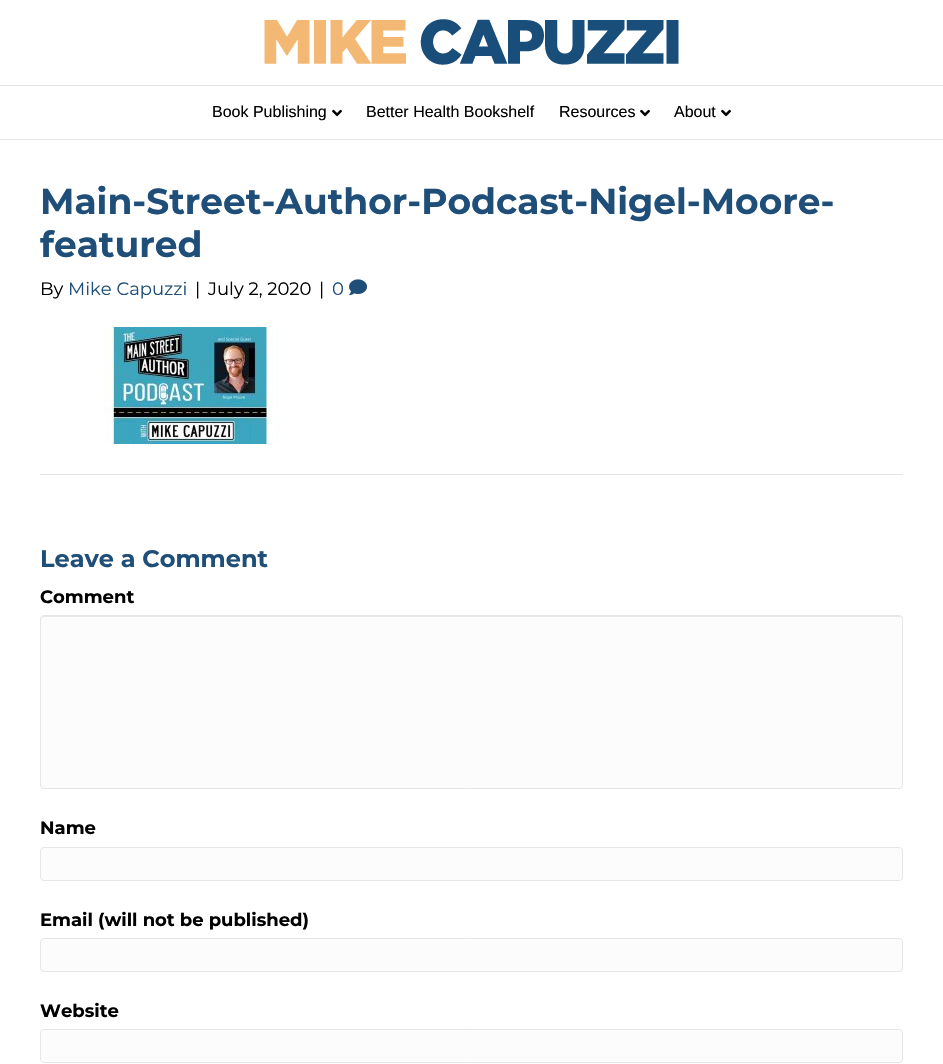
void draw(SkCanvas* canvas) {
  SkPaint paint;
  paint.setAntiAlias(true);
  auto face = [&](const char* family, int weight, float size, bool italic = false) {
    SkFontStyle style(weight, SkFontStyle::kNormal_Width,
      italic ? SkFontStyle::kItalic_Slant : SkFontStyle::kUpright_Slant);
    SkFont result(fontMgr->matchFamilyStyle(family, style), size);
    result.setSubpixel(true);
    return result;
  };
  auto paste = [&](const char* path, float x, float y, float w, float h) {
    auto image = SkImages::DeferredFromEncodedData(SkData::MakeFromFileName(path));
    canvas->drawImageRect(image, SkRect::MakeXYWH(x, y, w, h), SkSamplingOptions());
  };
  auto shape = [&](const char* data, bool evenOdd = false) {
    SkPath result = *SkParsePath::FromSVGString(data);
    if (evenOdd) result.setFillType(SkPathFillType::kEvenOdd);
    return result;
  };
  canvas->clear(0xffffffff);
  paste("img/1.png", 264, 19, 415, 46);
  paint.setColor(0xffe6e6e6);
  canvas->drawRect(SkRect::MakeXYWH(0, 85, 943, 1), paint);
  canvas->drawRect(SkRect::MakeXYWH(0, 139, 943, 1), paint);
  paste("img/2.png", 332, 109, 10, 8);
  paste("img/2.png", 640, 109, 10, 8);
  paste("img/2.png", 721, 109, 10, 8);
  paste("img/3.png", 349, 279, 18, 17);
  paste("img/4.png", 104, 327, 176, 117);
  canvas->drawRect(SkRect::MakeXYWH(40, 474, 863, 1), paint);
  paint.setColor(0xfffcfcfc);
  canvas->drawRoundRect(SkRect::MakeXYWH(40, 615, 863, 174), 4, 4, paint);
  paint.setColor(0xffe9e9e9);
  canvas->drawPath(shape("M44 617H899C901 617 902 618 902 620C902 618 901 616 899 616H44C42 616 41 618 41 620C41 618 42 617 44 617Z"), paint);
  paint.setStroke(true);
  paint.setStrokeWidth(1);
  paint.setColor(0xffe6e6e6);
  canvas->drawRoundRect(SkRect::MakeXYWH(40.5f, 615.5f, 862, 173), 3.5f, 3.5f, paint);
  paint.setStroke(false);
  paint.setColor(0xfffcfcfc);
  canvas->drawRoundRect(SkRect::MakeXYWH(40.5f, 847.5f, 862, 33), 3.5f, 3.5f, paint);
  paint.setStroke(true);
  paint.setColor(0xffe6e6e6);
  canvas->drawRoundRect(SkRect::MakeXYWH(40.5f, 847.5f, 862, 33), 3.5f, 3.5f, paint);
  paint.setStroke(false);
  paint.setColor(0xfffcfcfc);
  canvas->drawRoundRect(SkRect::MakeXYWH(40.5f, 938.5f, 862, 33), 3.5f, 3.5f, paint);
  paint.setStroke(true);
  paint.setColor(0xffe6e6e6);
  canvas->drawRoundRect(SkRect::MakeXYWH(40.5f, 938.5f, 862, 33), 3.5f, 3.5f, paint);
  paint.setStroke(false);
  paint.setColor(0xfffcfcfc);
  canvas->drawRoundRect(SkRect::MakeXYWH(40.5f, 1029.5f, 862, 33), 3.5f, 3.5f, paint);
  paint.setStroke(true);
  paint.setColor(0xffe6e6e6);
  canvas->drawRoundRect(SkRect::MakeXYWH(40.5f, 1029.5f, 862, 33), 3.5f, 3.5f, paint);
  auto f0 = face("Liberation Sans", 400, 16);
  paint.setStroke(false);
  paint.setColor(0xff000000);
  {
    const struct { const char* s; float x, y; } items[] = {
      {"Book Publishing", 212, 117},
      {"Better Health Bookshelf", 366, 117},
      {"Resources", 559, 117},
      {"About", 674, 117},
    };
    for (auto [s, x, y] : items) {
      canvas->drawString(s, x, y, f0, paint);
    }
  }
  auto f1 = face("Montserrat", 700, 36);
  paint.setColor(0xff1f4f79);
  canvas->drawString("Main-Street-Author-Podcast-Nigel-Moore-", 40, 214, f1, paint);
  canvas->drawString("featured", 40, 257, f1, paint);
  auto f2 = face("Montserrat", 400, 18);
  paint.setColor(0xff000000);
  canvas->drawString("By", 40, 295, f2, paint);
  paint.setColor(0xff1f4f79);
  canvas->drawString("Mike Capuzzi", 68, 295, f2, paint);
  paint.setColor(0xff000000);
  {
    const struct { const char* s; float x, y; } items[] = {
      {"|", 195, 295},
      {"July 2, 2020", 208, 295},
      {"|", 319, 295},
    };
    for (auto [s, x, y] : items) {
      canvas->drawString(s, x, y, f2, paint);
    }
  }
  paint.setColor(0xff1f4f79);
  canvas->drawString("0", 332, 295, f2, paint);
  auto f3 = face("Montserrat", 700, 24);
  canvas->drawString("Leave a Comment", 40, 567, f3, paint);
  auto f4 = face("Montserrat", 700, 18);
  paint.setColor(0xff000000);
  {
    const struct { const char* s; float x, y; } items[] = {
      {"Comment", 40, 603},
      {"Name", 40, 834},
      {"Email (will not be published)", 40, 926},
      {"Website", 40, 1017},
    };
    for (auto [s, x, y] : items) {
      canvas->drawString(s, x, y, f4, paint);
    }
  }
}
